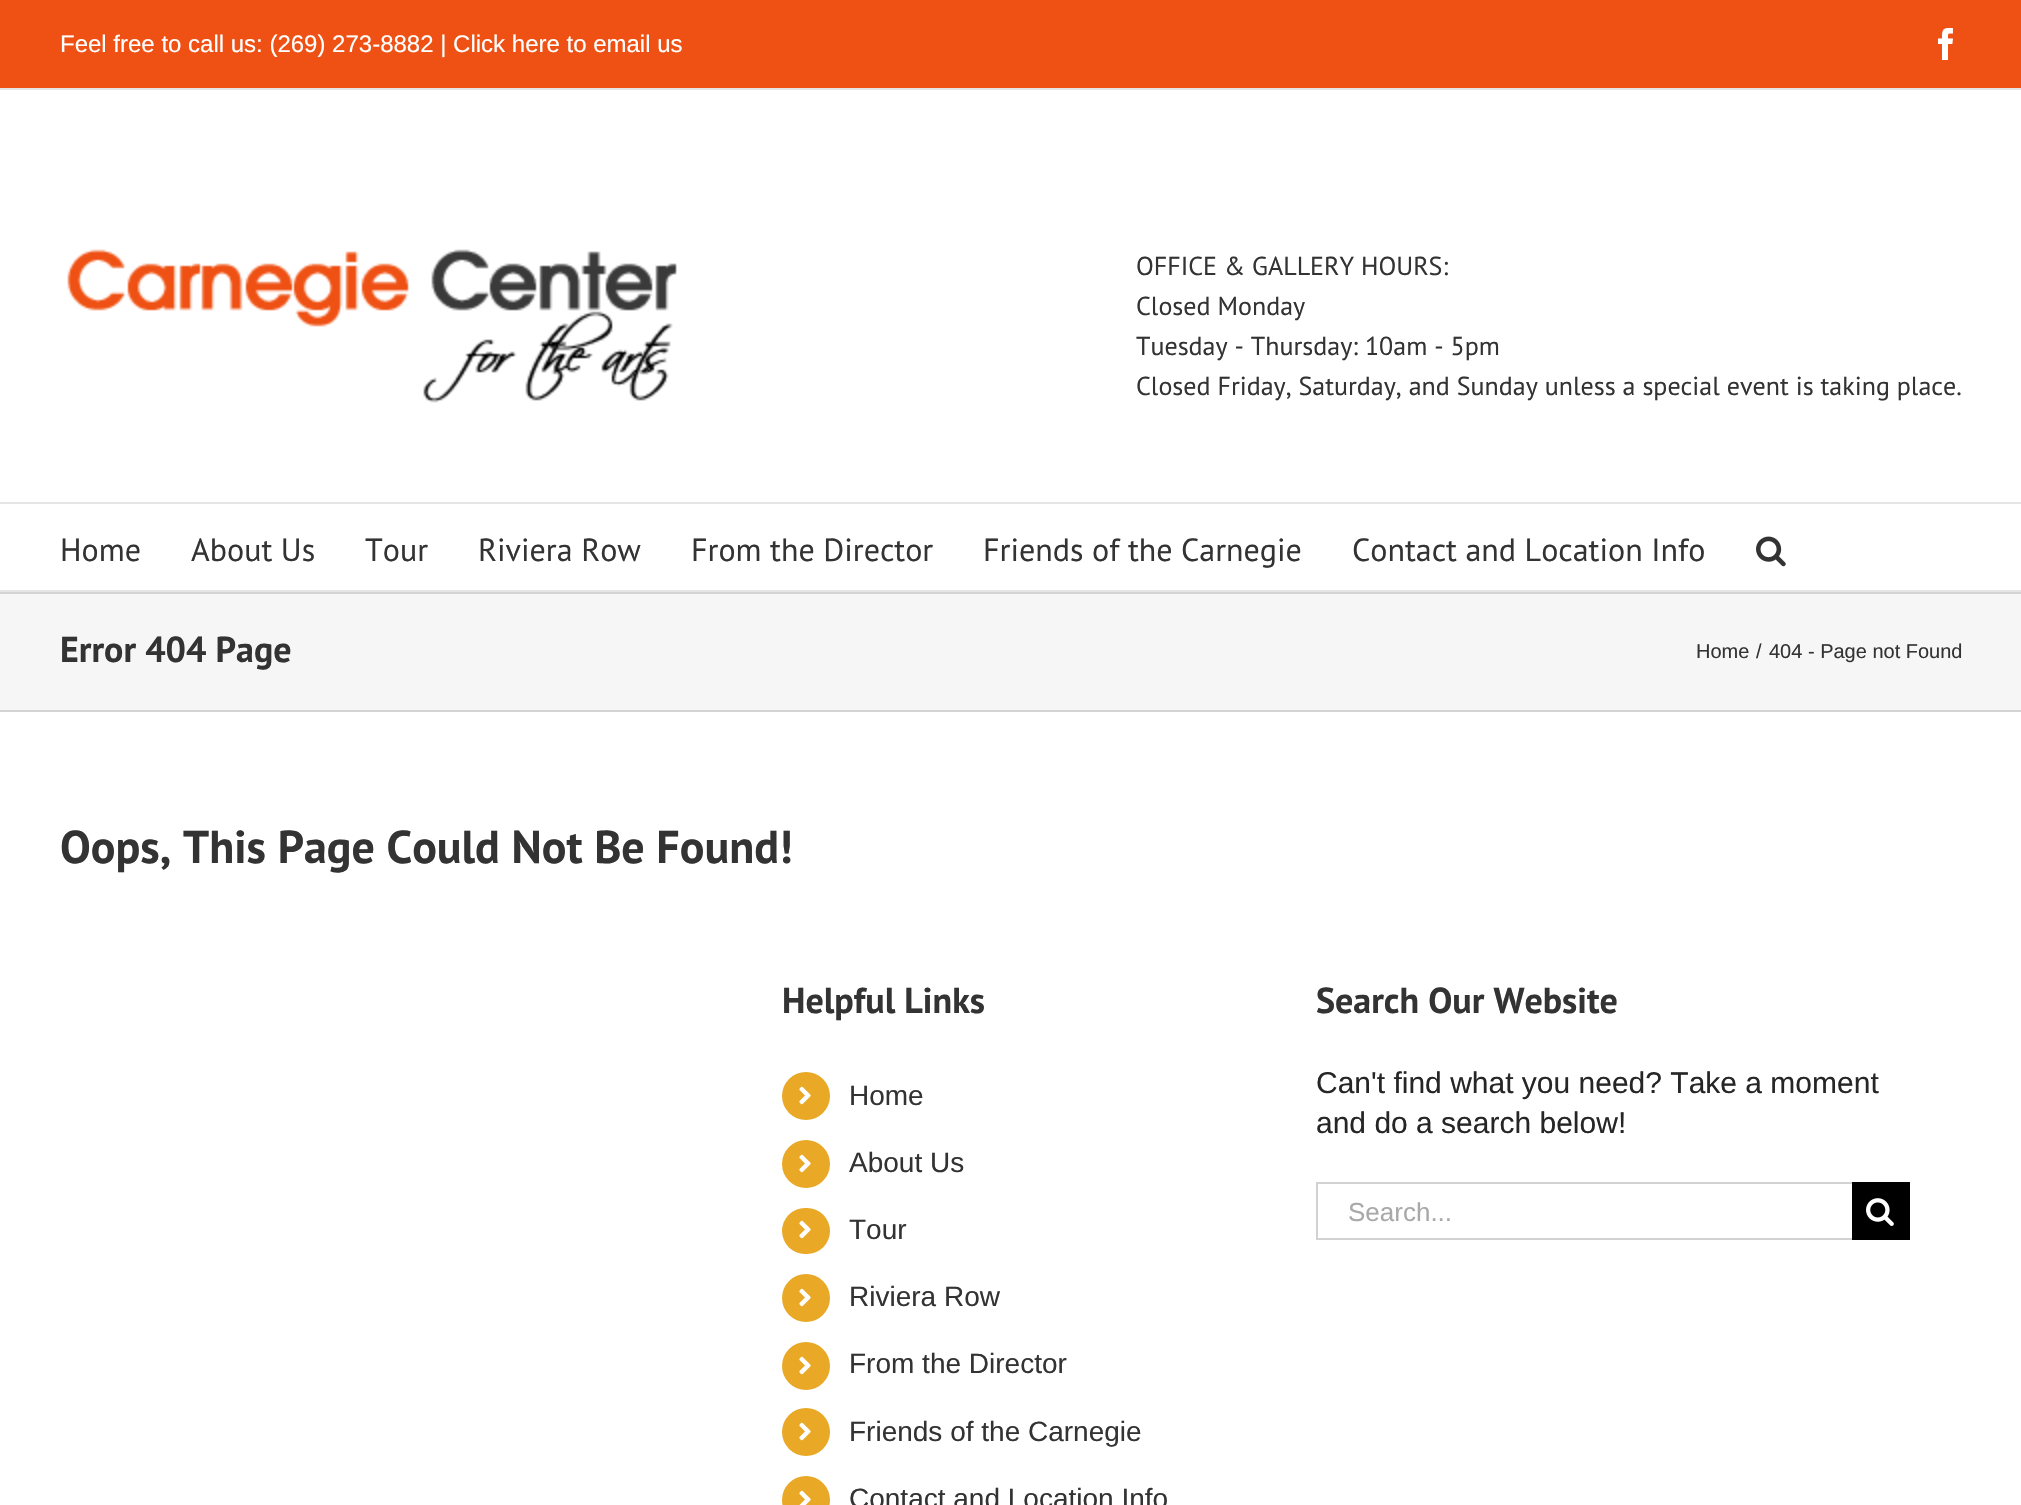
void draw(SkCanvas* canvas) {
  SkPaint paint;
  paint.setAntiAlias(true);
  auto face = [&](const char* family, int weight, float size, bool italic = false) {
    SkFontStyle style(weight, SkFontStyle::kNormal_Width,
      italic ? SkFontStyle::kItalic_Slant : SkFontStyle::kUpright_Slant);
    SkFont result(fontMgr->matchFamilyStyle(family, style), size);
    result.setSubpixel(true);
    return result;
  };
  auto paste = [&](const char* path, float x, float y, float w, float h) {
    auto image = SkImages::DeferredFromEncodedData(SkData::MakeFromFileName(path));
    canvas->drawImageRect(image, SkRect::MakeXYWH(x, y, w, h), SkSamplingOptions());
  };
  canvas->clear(0xfff6f6f6);
  paint.setColor(0xffee5113);
  canvas->drawRect(SkRect::MakeXYWH(0, 0, 2021, 88), paint);
  paint.setColor(0xffe5e5e5);
  canvas->drawRect(SkRect::MakeXYWH(0, 88, 2021, 2), paint);
  paste("img/1.png", 1938, 28, 15, 32);
  paint.setColor(0xffffffff);
  canvas->drawRect(SkRect::MakeXYWH(0, 90, 2021, 412), paint);
  paint.setColor(0xffe5e5e5);
  canvas->drawRect(SkRect::MakeXYWH(0, 502, 2021, 2), paint);
  paste("img/2.png", 67, 249, 610, 154);
  paint.setColor(0xffffffff);
  canvas->drawRect(SkRect::MakeXYWH(0, 504, 2021, 86), paint);
  paint.setColor(0xffe5e5e5);
  canvas->drawRect(SkRect::MakeXYWH(0, 590, 2021, 2), paint);
  paste("img/3.png", 1756, 536, 30, 31);
  {
    const struct { float x, y, w, h; SkColor color; } items[] = {
      {0, 592, 2021, 2, 0xffd2d3d4},
      {0, 710, 2021, 2, 0xffd2d3d4},
      {0, 712, 2021, 793, 0xffffffff},
    };
    for (auto [x, y, w, h, color] : items) {
      paint.setColor(color);
      canvas->drawRect(SkRect::MakeXYWH(x, y, w, h), paint);
    }
  }
  paint.setColor(0xffe9a825);
  canvas->drawCircle(806, 1096, 24, paint);
  paste("img/4.png", 799, 1086, 12, 19);
  canvas->drawCircle(806, 1164, 24, paint);
  paste("img/4.png", 799, 1154, 12, 19);
  canvas->drawRoundRect(SkRect::MakeXYWH(782, 1208, 48, 46), 23, 23, paint);
  paste("img/4.png", 799, 1220, 12, 19);
  canvas->drawCircle(806, 1298, 24, paint);
  paste("img/4.png", 799, 1288, 12, 19);
  canvas->drawCircle(806, 1366, 24, paint);
  paste("img/4.png", 799, 1356, 12, 19);
  canvas->drawCircle(806, 1432, 24, paint);
  paste("img/4.png", 799, 1422, 12, 19);
  canvas->drawCircle(806, 1500, 24, paint);
  paste("img/5.png", 799, 1490, 12, 15);
  {
    const struct { float x, y, w, h; SkColor color; } items[] = {
      {1316, 1182, 536, 2, 0xffd2d2d2},
      {1316, 1238, 536, 2, 0xffd2d2d2},
      {1316, 1182, 2, 58, 0xffd2d2d2},
      {1852, 1182, 58, 58, 0xff000000},
    };
    for (auto [x, y, w, h, color] : items) {
      paint.setColor(color);
      canvas->drawRect(SkRect::MakeXYWH(x, y, w, h), paint);
    }
  }
  paste("img/6.png", 1866, 1198, 28, 28);
  auto f0 = face("Liberation Sans", 400, 24);
  paint.setColor(0xffffffff);
  canvas->drawString("Feel free to call us: (269) 273-8882 | Click here to email us", 60, 52, f0, paint);
  auto f1 = face("PT Sans", 400, 26);
  paint.setColor(0xff333333);
  {
    const struct { const char* s; float x, y; } items[] = {
      {"OFFICE & GALLERY HOURS:", 1136, 275},
      {"Closed Monday", 1136, 315},
      {"Tuesday - Thursday: 10am - 5pm", 1136, 355},
      {"Closed Friday, Saturday, and Sunday unless a special event is taking place.", 1136, 395},
    };
    for (auto [s, x, y] : items) {
      canvas->drawString(s, x, y, f1, paint);
    }
  }
  auto f2 = face("PT Sans", 400, 32);
  {
    const struct { const char* s; float x, y; } items[] = {
      {"Home", 60, 561},
      {"About Us", 191, 561},
      {"Tour", 365, 561},
      {"Riviera Row", 478, 561},
      {"From the Director", 691, 561},
      {"Friends of the Carnegie", 983, 561},
      {"Contact and Location Info", 1352, 561},
    };
    for (auto [s, x, y] : items) {
      canvas->drawString(s, x, y, f2, paint);
    }
  }
  auto f3 = face("PT Sans", 700, 36);
  canvas->drawString("Error 404 Page", 60, 662, f3, paint);
  auto f4 = face("Liberation Sans", 400, 20);
  {
    const struct { const char* s; float x, y; } items[] = {
      {"Home", 1696, 658},
      {"/", 1756, 658},
      {"404 - Page not Found", 1769, 658},
    };
    for (auto [s, x, y] : items) {
      canvas->drawString(s, x, y, f4, paint);
    }
  }
  auto f5 = face("PT Sans", 700, 46);
  canvas->drawString("Oops, This Page Could Not Be Found!", 60, 863, f5, paint);
  canvas->drawString("Helpful Links", 782, 1013, f3, paint);
  auto f6 = face("Liberation Sans", 400, 28);
  {
    const struct { const char* s; float x, y; } items[] = {
      {"Home", 849, 1105},
      {"About Us", 849, 1172},
      {"Tour", 849, 1239},
      {"Riviera Row", 849, 1306},
      {"From the Director", 849, 1373},
      {"Friends of the Carnegie", 849, 1441},
      {"Contact and Location Info", 849, 1508},
    };
    for (auto [s, x, y] : items) {
      canvas->drawString(s, x, y, f6, paint);
    }
  }
  canvas->drawString("Search Our Website", 1316, 1013, f3, paint);
  auto f7 = face("Liberation Sans", 400, 30);
  paint.setColor(0xff262626);
  canvas->drawString("Can't find what you need? Take a moment", 1316, 1093, f7, paint);
  canvas->drawString("and do a search below!", 1316, 1133, f7, paint);
  auto f8 = face("Liberation Sans", 400, 26);
  paint.setColor(0xffaaa9a9);
  canvas->drawString("Search...", 1348, 1221, f8, paint);
}
